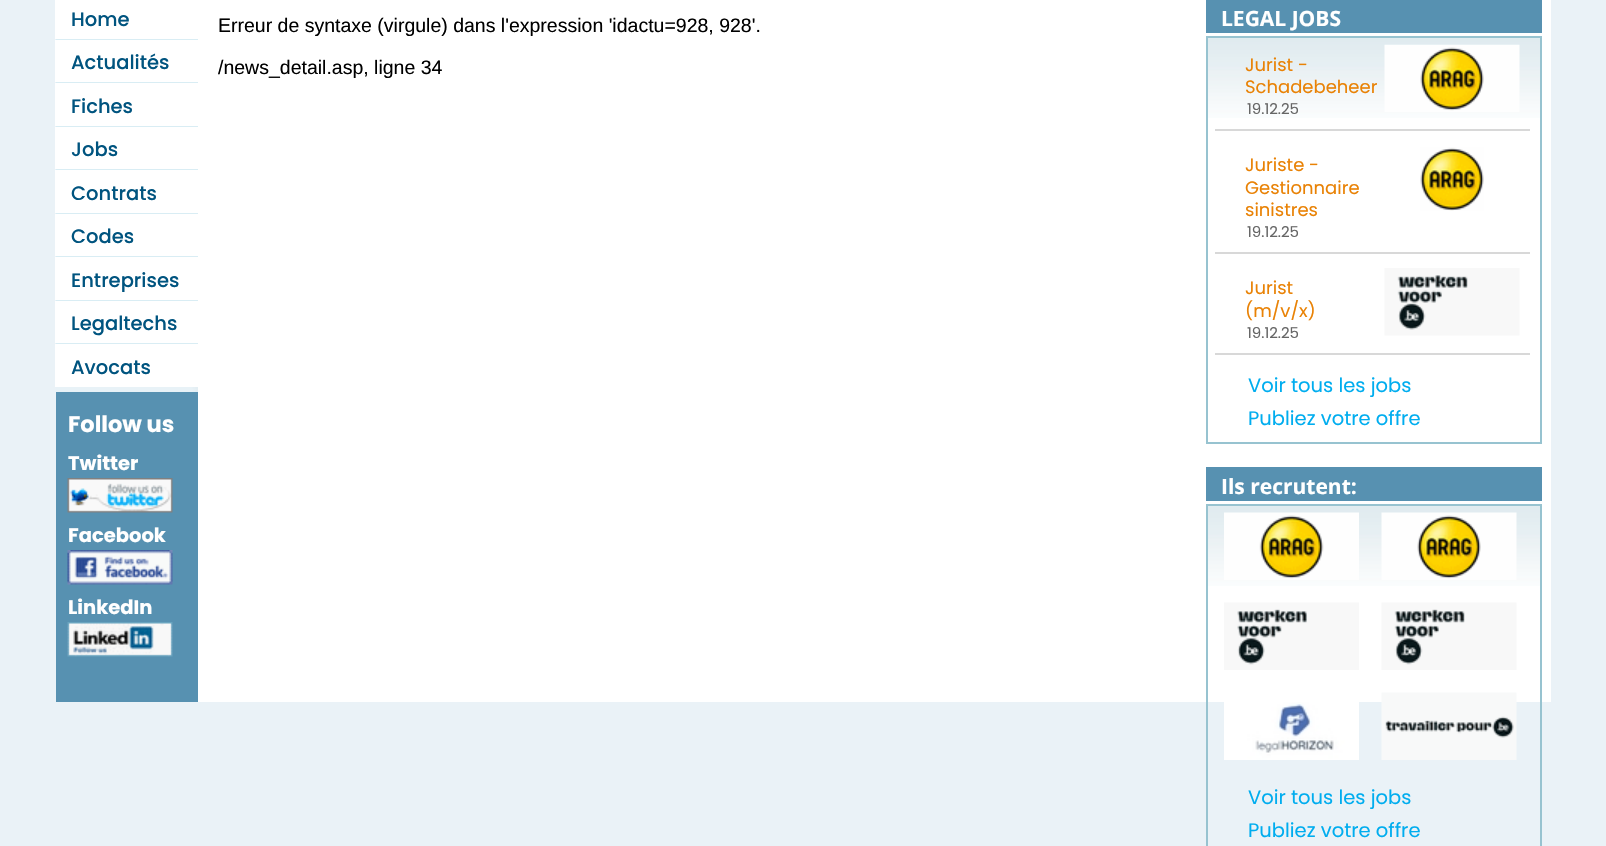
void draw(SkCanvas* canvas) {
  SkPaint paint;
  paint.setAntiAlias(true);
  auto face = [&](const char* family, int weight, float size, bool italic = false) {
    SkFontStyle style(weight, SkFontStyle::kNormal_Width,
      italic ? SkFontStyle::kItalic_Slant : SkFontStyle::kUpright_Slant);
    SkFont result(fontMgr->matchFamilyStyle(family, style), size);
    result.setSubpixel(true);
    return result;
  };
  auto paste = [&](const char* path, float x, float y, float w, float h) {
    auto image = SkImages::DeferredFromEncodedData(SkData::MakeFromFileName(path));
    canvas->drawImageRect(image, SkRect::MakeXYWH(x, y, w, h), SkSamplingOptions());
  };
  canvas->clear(0xffeaf2f7);
  paint.setColor(0xffffffff);
  canvas->drawRect(SkRect::MakeXYWH(198, 0, 1353, 702), paint);
  paste("img/1.png", 56, 387, 142, 5);
  {
    const struct { float x, y, w, h; SkColor color; } items[] = {
      {55, 0, 143, 39, 0xffffffff},
      {56, 39, 142, 44, 0xffd9edf4},
      {55, 40, 143, 42, 0xffffffff},
      {55, 83, 143, 43, 0xffffffff},
      {56, 126, 142, 44, 0xffd9edf4},
      {55, 127, 143, 42, 0xffffffff},
      {55, 170, 143, 43, 0xffffffff},
      {56, 213, 142, 44, 0xffd9edf4},
      {55, 214, 143, 42, 0xffffffff},
      {55, 257, 143, 43, 0xffffffff},
      {56, 300, 142, 44, 0xffd9edf4},
      {55, 301, 143, 42, 0xffffffff},
      {55, 344, 143, 43, 0xffffffff},
      {56, 392, 142, 310, 0xff5791b1},
    };
    for (auto [x, y, w, h, color] : items) {
      paint.setColor(color);
      canvas->drawRect(SkRect::MakeXYWH(x, y, w, h), paint);
    }
  }
  paste("img/2.png", 67, 478, 106, 35);
  paste("img/3.png", 67, 550, 106, 35);
  paste("img/4.png", 67, 622, 106, 35);
  canvas->drawRect(SkRect::MakeXYWH(1206, 0, 336, 33), paint);
  paste("img/5.png", 1208, 38, 332, 80);
  paint.setStroke(true);
  paint.setStrokeWidth(2);
  paint.setColor(0xff97c3d0);
  canvas->drawRect(SkRect::MakeXYWH(1207, 37, 334, 406), paint);
  paint.setStroke(false);
  paint.setColor(0xffd8d8d8);
  canvas->drawRect(SkRect::MakeXYWH(1215, 129, 315, 2), paint);
  paste("img/6.png", 1384, 44, 136, 68);
  canvas->drawRect(SkRect::MakeXYWH(1215, 252, 315, 2), paint);
  paste("img/7.png", 1420, 147, 64, 64);
  canvas->drawRect(SkRect::MakeXYWH(1215, 353, 315, 2), paint);
  paste("img/8.png", 1384, 268, 136, 68);
  paint.setColor(0xff5791b1);
  canvas->drawRect(SkRect::MakeXYWH(1206, 467, 336, 34), paint);
  paste("img/5.png", 1208, 506, 332, 80);
  paint.setStroke(true);
  paint.setColor(0xff97c3d0);
  canvas->drawRect(SkRect::MakeXYWH(1207, 505, 334, 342), paint);
  paste("img/9.png", 1224, 512, 135, 68);
  paste("img/10.png", 1381, 512, 136, 68);
  paste("img/11.png", 1224, 602, 135, 68);
  paste("img/12.png", 1381, 602, 136, 68);
  paste("img/13.png", 1224, 702, 135, 58);
  paste("img/14.png", 1381, 692, 136, 68);
  auto f0 = face("Poppins", 500, 19.5f);
  paint.setStroke(false);
  paint.setColor(0xff00547f);
  {
    const struct { const char* s; float x, y; } items[] = {
      {"Home", 71, 26},
      {"Actualités", 71, 69},
      {"Fiches", 71, 113},
      {"Jobs", 71, 156},
      {"Contrats", 71, 200},
      {"Codes", 71, 243},
      {"Entreprises", 71, 287},
      {"Legaltechs", 71, 330},
      {"Avocats", 71, 374},
    };
    for (auto [s, x, y] : items) {
      canvas->drawString(s, x, y, f0, paint);
    }
  }
  auto f1 = face("Poppins", 700, 22.5f);
  paint.setColor(0xffffffff);
  canvas->drawString("Follow us", 68, 432, f1, paint);
  auto f2 = face("Poppins", 700, 19.5f);
  {
    const struct { const char* s; float x, y; } items[] = {
      {"Twitter", 68, 470},
      {"Facebook", 68, 542},
      {"LinkedIn", 68, 614},
    };
    for (auto [s, x, y] : items) {
      canvas->drawString(s, x, y, f2, paint);
    }
  }
  auto f3 = face("Liberation Sans", 400, 19.5f);
  paint.setColor(0xff000000);
  canvas->drawString("Erreur de syntaxe (virgule) dans l'expression 'idactu=928, 928'.", 218, 32, f3, paint);
  canvas->drawString("/news_detail.asp, ligne 34", 218, 74, f3, paint);
  auto f4 = face("Open Sans", 700, 21);
  paint.setColor(0xffffffff);
  canvas->drawString("LEGAL JOBS", 1221, 26, f4, paint);
  auto f5 = face("Poppins", 400, 18);
  paint.setColor(0xffe98205);
  canvas->drawString("Jurist -", 1245, 71, f5, paint);
  canvas->drawString("Schadebeheer", 1245, 93, f5, paint);
  auto f6 = face("Poppins", 400, 15);
  paint.setColor(0xff666666);
  canvas->drawString("19.12.25", 1247, 114, f6, paint);
  paint.setColor(0xffe98205);
  {
    const struct { const char* s; float x, y; } items[] = {
      {"Juriste -", 1245, 171},
      {"Gestionnaire", 1245, 194},
      {"sinistres", 1245, 216},
    };
    for (auto [s, x, y] : items) {
      canvas->drawString(s, x, y, f5, paint);
    }
  }
  paint.setColor(0xff666666);
  canvas->drawString("19.12.25", 1247, 237, f6, paint);
  paint.setColor(0xffe98205);
  canvas->drawString("Jurist", 1245, 294, f5, paint);
  canvas->drawString("(m/v/x)", 1245, 317, f5, paint);
  paint.setColor(0xff666666);
  canvas->drawString("19.12.25", 1247, 338, f6, paint);
  auto f7 = face("Poppins", 400, 19.5f);
  paint.setColor(0xff00adef);
  canvas->drawString("Voir tous les jobs", 1248, 392, f7, paint);
  canvas->drawString("Publiez votre offre", 1248, 425, f7, paint);
  paint.setColor(0xffffffff);
  canvas->drawString("Ils recrutent:", 1221, 494, f4, paint);
  paint.setColor(0xff00adef);
  canvas->drawString("Voir tous les jobs", 1248, 804, f7, paint);
  canvas->drawString("Publiez votre offre", 1248, 837, f7, paint);
}
